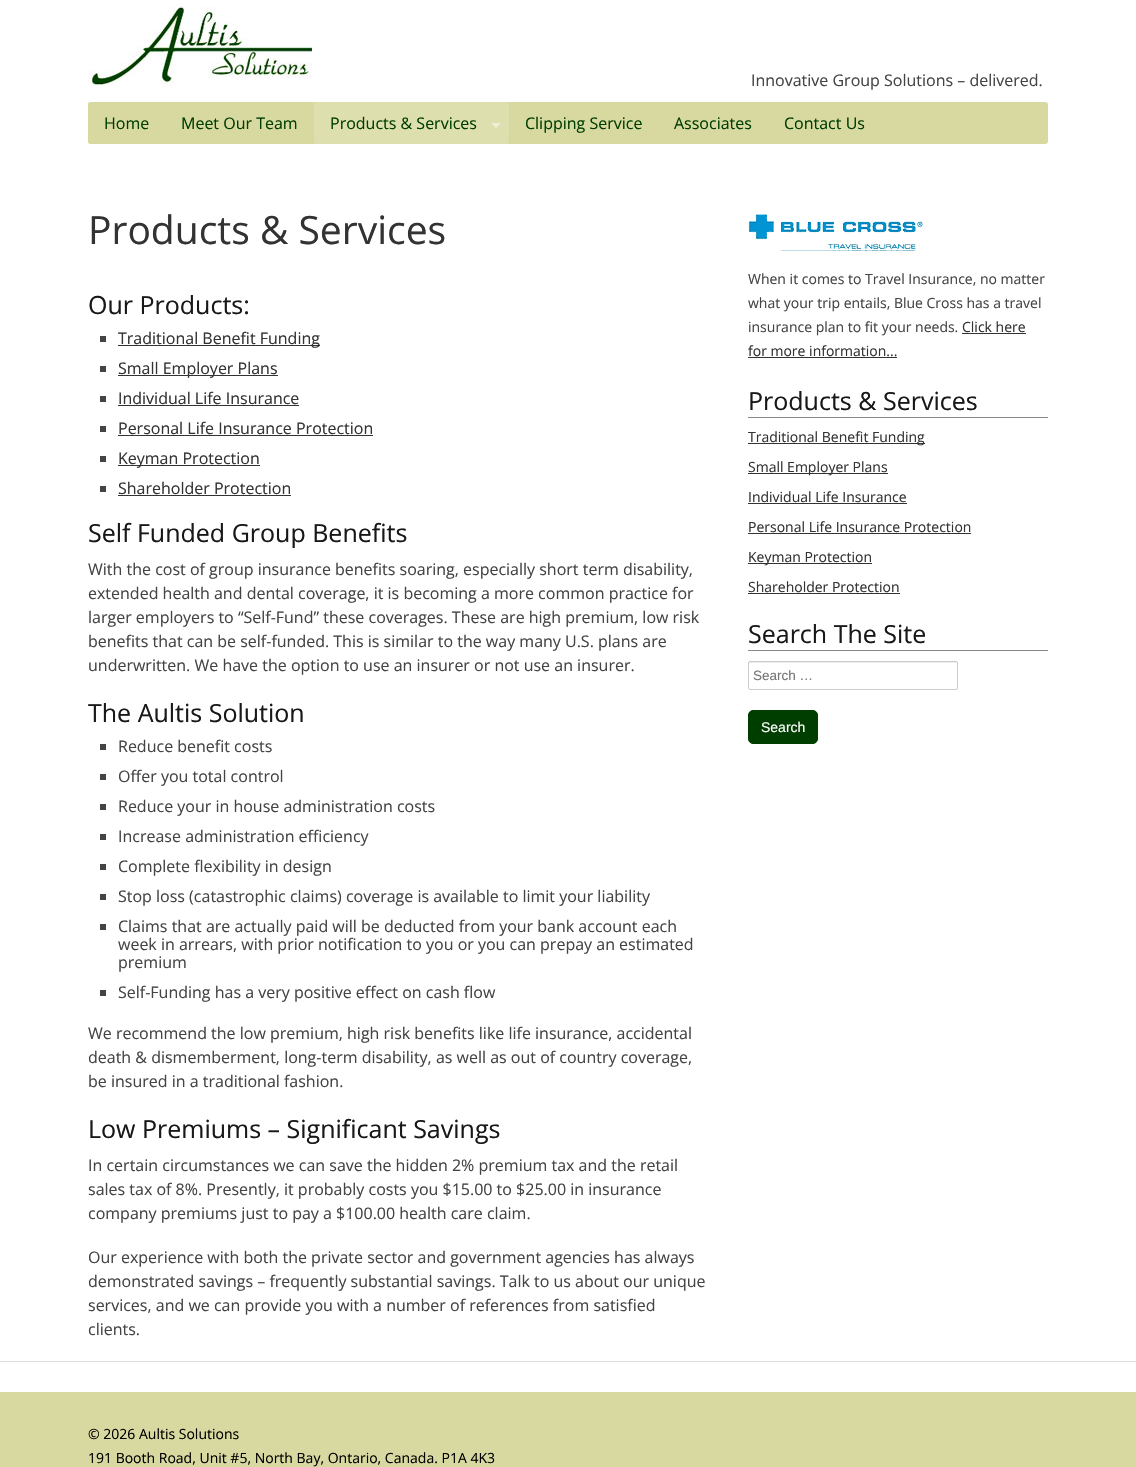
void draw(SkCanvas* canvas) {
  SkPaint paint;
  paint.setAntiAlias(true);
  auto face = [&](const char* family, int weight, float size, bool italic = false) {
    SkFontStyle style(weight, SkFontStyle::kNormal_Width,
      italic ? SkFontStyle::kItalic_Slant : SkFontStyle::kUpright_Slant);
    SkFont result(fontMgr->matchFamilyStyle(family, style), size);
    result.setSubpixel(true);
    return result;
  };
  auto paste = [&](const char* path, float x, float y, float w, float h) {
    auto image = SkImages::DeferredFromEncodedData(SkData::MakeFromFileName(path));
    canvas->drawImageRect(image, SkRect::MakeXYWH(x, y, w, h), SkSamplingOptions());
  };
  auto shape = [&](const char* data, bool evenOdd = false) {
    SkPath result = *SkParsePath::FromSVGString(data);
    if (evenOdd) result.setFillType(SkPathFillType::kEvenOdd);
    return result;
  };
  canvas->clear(0xffffffff);
  paste("img/1.png", 88, 6, 224, 80);
  paint.setColor(0xffd8d9a0);
  canvas->drawRoundRect(SkRect::MakeXYWH(88, 102, 960, 42), 3, 3, paint);
  canvas->drawRoundRect(SkRect::MakeXYWH(88, 102, 77, 42), 3, 3, paint);
  paint.setColor(0xffdedfae);
  canvas->drawRoundRect(SkRect::MakeXYWH(314, 102, 195, 42), 3, 3, paint);
  paint.setColor(0xffefefd7);
  canvas->drawPath(shape("M491 123H501L496 128Z"), paint);
  {
    const struct { float x, y, w, h; SkColor color; } items[] = {
      {100, 336, 6, 6, 0xff444444},
      {118, 345, 202, 1, 0xff333333},
      {100, 366, 6, 6, 0xff444444},
      {118, 375, 160, 1, 0xff333333},
      {100, 396, 6, 6, 0xff444444},
      {118, 405, 181, 1, 0xff333333},
      {100, 426, 6, 6, 0xff444444},
      {118, 435, 255, 1, 0xff333333},
      {100, 456, 6, 6, 0xff444444},
      {118, 465, 142, 1, 0xff333333},
      {100, 486, 6, 6, 0xff444444},
      {118, 495, 173, 1, 0xff333333},
      {100, 744, 6, 6, 0xff444444},
      {100, 774, 6, 6, 0xff444444},
      {100, 804, 6, 6, 0xff444444},
      {100, 834, 6, 6, 0xff444444},
      {100, 864, 6, 6, 0xff444444},
      {100, 894, 6, 6, 0xff444444},
      {100, 924, 6, 6, 0xff444444},
      {100, 990, 6, 6, 0xff444444},
    };
    for (auto [x, y, w, h, color] : items) {
      paint.setColor(color);
      canvas->drawRect(SkRect::MakeXYWH(x, y, w, h), paint);
    }
  }
  paste("img/2.png", 748, 214, 176, 37);
  {
    const struct { float x, y, w, h; SkColor color; } items[] = {
      {962, 333, 64, 1, 0xff333333},
      {748, 357, 149, 1, 0xff333333},
      {748, 417, 300, 1, 0xff888888},
      {748, 443, 177, 1, 0xff333333},
      {748, 473, 140, 1, 0xff333333},
      {748, 503, 159, 1, 0xff333333},
      {748, 533, 223, 1, 0xff333333},
      {748, 563, 124, 1, 0xff333333},
      {748, 593, 152, 1, 0xff333333},
      {748, 650, 300, 1, 0xff888888},
    };
    for (auto [x, y, w, h, color] : items) {
      paint.setColor(color);
      canvas->drawRect(SkRect::MakeXYWH(x, y, w, h), paint);
    }
  }
  paint.setColor(0xffececec);
  canvas->drawPath(shape("M750 663H957L956 662H750C749 662 749 663 749 664Z"), paint);
  paint.setStroke(true);
  paint.setStrokeWidth(1);
  paint.setColor(0xffcccccc);
  canvas->drawRoundRect(SkRect::MakeXYWH(748.5f, 661.5f, 209, 28), 1.5f, 1.5f, paint);
  paint.setStroke(false);
  paint.setColor(0xff003e00);
  canvas->drawRoundRect(SkRect::MakeXYWH(748.5f, 710.5f, 69, 33), 4.5f, 4.5f, paint);
  paint.setStroke(true);
  canvas->drawRoundRect(SkRect::MakeXYWH(748.5f, 710.5f, 69, 33), 4.5f, 4.5f, paint);
  paint.setStroke(false);
  paint.setColor(0xffdddddd);
  canvas->drawRect(SkRect::MakeXYWH(0, 1361, 1136, 1), paint);
  paint.setColor(0xffd8d9a0);
  canvas->drawRect(SkRect::MakeXYWH(0, 1392, 1136, 75), paint);
  auto f0 = face("Open Sans", 400, 16);
  paint.setColor(0xff444444);
  canvas->drawString("Innovative Group Solutions – delivered.", 751, 86, f0, paint);
  paint.setColor(0xff003e00);
  {
    const struct { const char* s; float x, y; } items[] = {
      {"Home", 104, 129},
      {"Meet Our Team", 181, 129},
      {"Products & Services", 330, 129},
      {"Clipping Service", 525, 129},
      {"Associates", 674, 129},
      {"Contact Us", 784, 129},
    };
    for (auto [s, x, y] : items) {
      canvas->drawString(s, x, y, f0, paint);
    }
  }
  auto f1 = face("Open Sans", 400, 39);
  paint.setColor(0xff333333);
  canvas->drawString("Products & Services", 88, 244, f1, paint);
  auto f2 = face("Open Sans", 400, 25);
  paint.setColor(0xff181818);
  canvas->drawString("Our Products:", 88, 314, f2, paint);
  paint.setColor(0xff333333);
  {
    const struct { const char* s; float x, y; } items[] = {
      {"Traditional Benefit Funding", 118, 344},
      {"Small Employer Plans", 118, 374},
      {"Individual Life Insurance", 118, 404},
      {"Personal Life Insurance Protection", 118, 434},
      {"Keyman Protection", 118, 464},
      {"Shareholder Protection", 118, 494},
    };
    for (auto [s, x, y] : items) {
      canvas->drawString(s, x, y, f0, paint);
    }
  }
  paint.setColor(0xff181818);
  canvas->drawString("Self Funded Group Benefits", 88, 542, f2, paint);
  paint.setColor(0xff444444);
  {
    const struct { const char* s; float x, y; } items[] = {
      {"With the cost of group insurance benefits soaring, especially short term disability,", 88, 575},
      {"extended health and dental coverage, it is becoming a more common practice for", 88, 599},
      {"larger employers to “Self-Fund” these coverages. These are high premium, low risk", 88, 623},
      {"benefits that can be self-funded. This is similar to the way many U.S. plans are", 88, 647},
      {"underwritten. We have the option to use an insurer or not use an insurer.", 88, 671},
    };
    for (auto [s, x, y] : items) {
      canvas->drawString(s, x, y, f0, paint);
    }
  }
  paint.setColor(0xff181818);
  canvas->drawString("The Aultis Solution", 88, 722, f2, paint);
  paint.setColor(0xff444444);
  {
    const struct { const char* s; float x, y; } items[] = {
      {"Reduce benefit costs", 118, 752},
      {"Offer you total control", 118, 782},
      {"Reduce your in house administration costs", 118, 812},
      {"Increase administration efficiency", 118, 842},
      {"Complete flexibility in design", 118, 872},
      {"Stop loss (catastrophic claims) coverage is available to limit your liability", 118, 902},
      {"Claims that are actually paid will be deducted from your bank account each", 118, 932},
      {"week in arrears, with prior notification to you or you can prepay an estimated", 118, 950},
      {"premium", 118, 968},
      {"Self-Funding has a very positive effect on cash flow", 118, 998},
      {"We recommend the low premium, high risk benefits like life insurance, accidental", 88, 1039},
      {"death & dismemberment, long-term disability, as well as out of country coverage,", 88, 1063},
      {"be insured in a traditional fashion.", 88, 1087},
    };
    for (auto [s, x, y] : items) {
      canvas->drawString(s, x, y, f0, paint);
    }
  }
  paint.setColor(0xff181818);
  canvas->drawString("Low Premiums – Significant Savings", 88, 1138, f2, paint);
  paint.setColor(0xff444444);
  {
    const struct { const char* s; float x, y; } items[] = {
      {"In certain circumstances we can save the hidden 2% premium tax and the retail", 88, 1171},
      {"sales tax of 8%. Presently, it probably costs you $15.00 to $25.00 in insurance", 88, 1195},
      {"company premiums just to pay a $100.00 health care claim.", 88, 1219},
      {"Our experience with both the private sector and government agencies has always", 88, 1263},
      {"demonstrated savings – frequently substantial savings. Talk to us about our unique", 88, 1287},
      {"services, and we can provide you with a number of references from satisfied", 88, 1311},
      {"clients.", 88, 1335},
    };
    for (auto [s, x, y] : items) {
      canvas->drawString(s, x, y, f0, paint);
    }
  }
  auto f3 = face("Open Sans", 400, 14);
  {
    const struct { const char* s; float x, y; } items[] = {
      {"When it comes to Travel Insurance, no matter", 748, 284},
      {"what your trip entails, Blue Cross has a travel", 748, 308},
      {"insurance plan to fit your needs.", 748, 332},
    };
    for (auto [s, x, y] : items) {
      canvas->drawString(s, x, y, f3, paint);
    }
  }
  paint.setColor(0xff333333);
  canvas->drawString("Click here", 962, 332, f3, paint);
  canvas->drawString("for more information...", 748, 356, f3, paint);
  paint.setColor(0xff181818);
  canvas->drawString("Products & Services", 748, 410, f2, paint);
  paint.setColor(0xff333333);
  {
    const struct { const char* s; float x, y; } items[] = {
      {"Traditional Benefit Funding", 748, 442},
      {"Small Employer Plans", 748, 472},
      {"Individual Life Insurance", 748, 502},
      {"Personal Life Insurance Protection", 748, 532},
      {"Keyman Protection", 748, 562},
      {"Shareholder Protection", 748, 592},
    };
    for (auto [s, x, y] : items) {
      canvas->drawString(s, x, y, f3, paint);
    }
  }
  paint.setColor(0xff181818);
  canvas->drawString("Search The Site", 748, 643, f2, paint);
  auto f4 = face("Liberation Sans", 400, 13.5f);
  paint.setColor(0xff757575);
  canvas->drawString("Search …", 753, 680, f4, paint);
  auto f5 = face("Liberation Sans", 400, 14);
  paint.setColor(0xffffffff);
  canvas->drawString("Search", 761, 732, f5, paint);
  paint.setColor(0xff000000);
  canvas->drawString("© 2026 Aultis Solutions", 88, 1439, f3, paint);
  canvas->drawString("191 Booth Road, Unit #5, North Bay, Ontario, Canada. P1A 4K3", 88, 1463, f3, paint);
}
